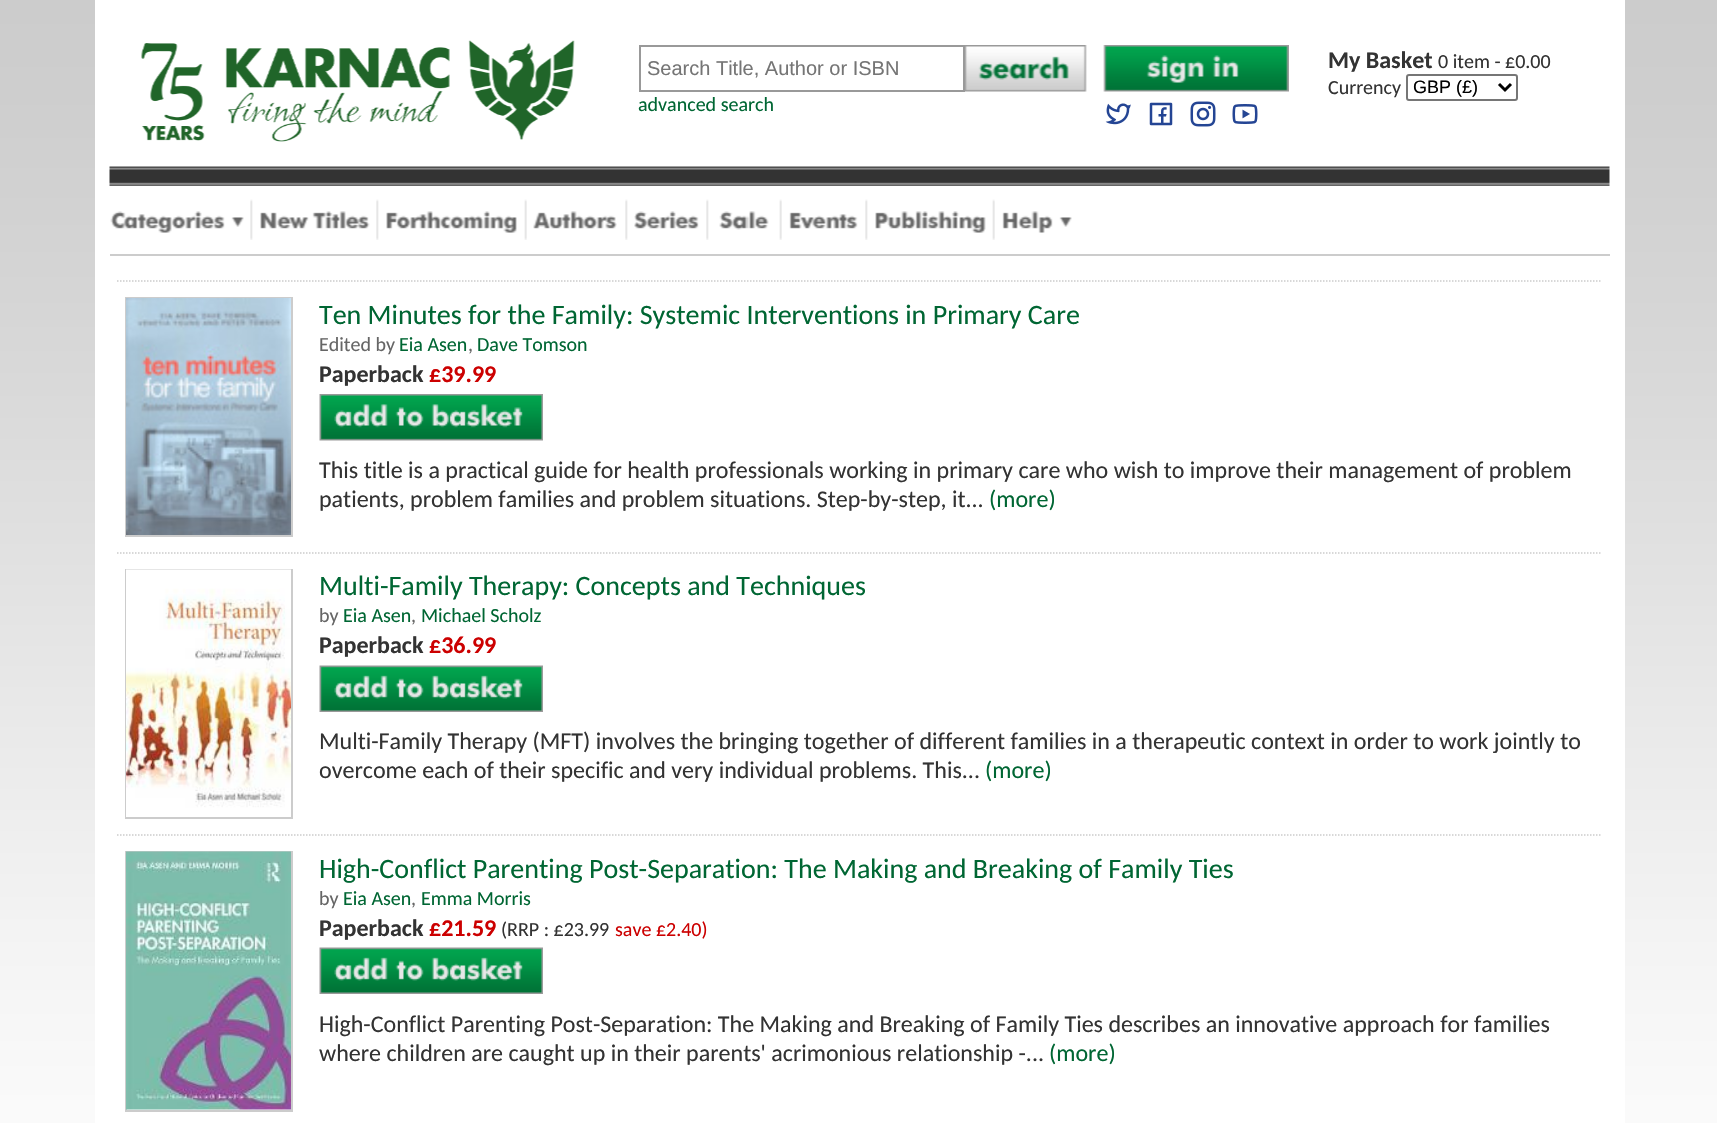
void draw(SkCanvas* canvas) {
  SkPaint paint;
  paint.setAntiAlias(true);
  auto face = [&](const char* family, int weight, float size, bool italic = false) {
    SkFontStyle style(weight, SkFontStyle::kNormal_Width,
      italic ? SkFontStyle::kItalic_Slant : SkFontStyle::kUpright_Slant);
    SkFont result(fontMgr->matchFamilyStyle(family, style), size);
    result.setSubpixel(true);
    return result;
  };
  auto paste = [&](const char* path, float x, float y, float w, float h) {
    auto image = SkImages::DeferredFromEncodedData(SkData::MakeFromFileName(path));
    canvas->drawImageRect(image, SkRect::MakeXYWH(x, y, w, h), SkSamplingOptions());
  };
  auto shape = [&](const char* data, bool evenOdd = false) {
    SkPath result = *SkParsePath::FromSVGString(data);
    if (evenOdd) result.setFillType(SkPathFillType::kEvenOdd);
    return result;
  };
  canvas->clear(0xffffffff);
  paste("img/1.png", 0, 0, 1717, 1123);
  paint.setColor(0xffffffff);
  canvas->drawRect(SkRect::MakeXYWH(95, 0, 1530, 1123), paint);
  paste("img/2.png", 141, 40, 434, 102);
  paint.setStroke(true);
  paint.setStrokeWidth(2);
  paint.setColor(0xff999999);
  canvas->drawRect(SkRect::MakeXYWH(640, 46, 324, 45), paint);
  paste("img/3.png", 965, 45, 122, 47);
  paste("img/4.png", 1103, 45, 186, 47);
  paste("img/5.png", 1105, 103, 26, 22);
  paste("img/6.png", 1149, 102, 24, 24);
  paste("img/7.png", 1190, 101, 26, 26);
  paste("img/8.png", 1232, 104, 26, 20);
  paint.setColor(0xff767676);
  canvas->drawRoundRect(SkRect::MakeXYWH(1407, 75, 110, 25), 2, 2, paint);
  paint.setStrokeWidth(3);
  paint.setColor(0xff000000);
  canvas->drawPath(shape("M1499 84L1505 90L1511 84"), paint);
  paste("img/9.png", 109, 166, 1501, 20);
  paint.setStroke(false);
  paint.setColor(0xffcccccc);
  canvas->drawRect(SkRect::MakeXYWH(110, 254, 1500, 2), paint);
  paste("img/10.png", 110, 211, 134, 22);
  paste("img/11.png", 250, 199, 3, 41);
  paste("img/12.png", 260, 211, 110, 18);
  paste("img/11.png", 376, 199, 3, 41);
  paste("img/13.png", 386, 211, 131, 22);
  paste("img/14.png", 524, 199, 3, 41);
  paste("img/15.png", 533, 211, 84, 18);
  paste("img/11.png", 625, 199, 3, 41);
  paste("img/16.png", 634, 211, 65, 18);
  paste("img/11.png", 706, 199, 3, 41);
  paste("img/17.png", 719, 211, 50, 19);
  paste("img/14.png", 779, 199, 3, 41);
  paste("img/18.png", 789, 212, 69, 17);
  paste("img/11.png", 865, 199, 3, 41);
  paste("img/19.png", 875, 211, 111, 22);
  paste("img/14.png", 992, 199, 3, 41);
  paste("img/20.png", 1002, 211, 70, 22);
  paint.setStroke(true);
  paint.setStrokeWidth(1.5f);
  paint.setPathEffect(SkDashPathEffect::Make({{1.5f, 1.5f}}, 0));
  canvas->drawPath(shape("M117 281H1602"), paint);
  paint.setPathEffect(nullptr);
  paint.setPathEffect(SkDashPathEffect::Make({{1.5f, 1.5f}}, 0));
  canvas->drawPath(shape("M117 553H1602"), paint);
  paint.setPathEffect(nullptr);
  paint.setStrokeWidth(2);
  canvas->drawRect(SkRect::MakeXYWH(126, 298, 166, 238), paint);
  paste("img/21.png", 126, 298, 165, 237);
  paste("img/22.png", 319, 394, 224, 47);
  paint.setStrokeWidth(1.5f);
  paint.setPathEffect(SkDashPathEffect::Make({{1.5f, 1.5f}}, 0));
  canvas->drawPath(shape("M117 835H1602"), paint);
  paint.setPathEffect(nullptr);
  paint.setStrokeWidth(2);
  canvas->drawRect(SkRect::MakeXYWH(126, 570, 166, 248), paint);
  paste("img/23.png", 126, 569, 165, 248);
  paste("img/24.png", 319, 665, 224, 47);
  canvas->drawRect(SkRect::MakeXYWH(126, 852, 166, 259), paint);
  paste("img/25.png", 126, 851, 165, 259);
  paste("img/24.png", 319, 947, 224, 47);
  auto f0 = face("Liberation Sans", 400, 20);
  paint.setStroke(false);
  paint.setColor(0xff757575);
  canvas->drawString("Search Title, Author or ISBN", 647, 75, f0, paint);
  auto f1 = face("Carlito", 400, 20);
  paint.setColor(0xff006633);
  canvas->drawString("advanced search", 638, 111, f1, paint);
  auto f2 = face("Carlito", 700, 24);
  paint.setColor(0xff333333);
  canvas->drawString("My Basket", 1328, 68, f2, paint);
  canvas->drawString("0 item - £0.00", 1438, 68, f1, paint);
  canvas->drawString("Currency", 1328, 94, f1, paint);
  auto f3 = face("Liberation Sans", 400, 18);
  paint.setColor(0xff000000);
  canvas->drawString("GBP (£)", 1413, 93, f3, paint);
  auto f4 = face("Carlito", 400, 28);
  paint.setColor(0xff006633);
  canvas->drawString("Ten Minutes for the Family: Systemic Interventions in Primary Care", 319, 324, f4, paint);
  paint.setColor(0xff666666);
  canvas->drawString("Edited by", 319, 351, f1, paint);
  paint.setColor(0xff006633);
  canvas->drawString("Eia Asen", 399, 351, f1, paint);
  paint.setColor(0xff666666);
  canvas->drawString(",", 468, 351, f1, paint);
  paint.setColor(0xff006633);
  canvas->drawString("Dave Tomson", 477, 351, f1, paint);
  paint.setColor(0xff333333);
  canvas->drawString("Paperback", 319, 382, f2, paint);
  paint.setColor(0xffcc0000);
  canvas->drawString("£39.99", 429, 382, f2, paint);
  auto f5 = face("Carlito", 400, 24);
  paint.setColor(0xff333333);
  canvas->drawString("This title is a practical guide for health professionals working in primary care who wish to improve their management of problem", 319, 478, f5, paint);
  canvas->drawString("patients, problem families and problem situations. Step-by-step, it...", 319, 507, f5, paint);
  paint.setColor(0xff006633);
  canvas->drawString("(more)", 989, 507, f5, paint);
  canvas->drawString("Multi-Family Therapy: Concepts and Techniques", 319, 595, f4, paint);
  paint.setColor(0xff666666);
  canvas->drawString("by", 319, 622, f1, paint);
  paint.setColor(0xff006633);
  canvas->drawString("Eia Asen", 343, 622, f1, paint);
  paint.setColor(0xff666666);
  canvas->drawString(",", 411, 622, f1, paint);
  paint.setColor(0xff006633);
  canvas->drawString("Michael Scholz", 421, 622, f1, paint);
  paint.setColor(0xff333333);
  canvas->drawString("Paperback", 319, 653, f2, paint);
  paint.setColor(0xffcc0000);
  canvas->drawString("£36.99", 429, 653, f2, paint);
  paint.setColor(0xff333333);
  canvas->drawString("Multi-Family Therapy (MFT) involves the bringing together of different families in a therapeutic context in order to work jointly to", 319, 749, f5, paint);
  canvas->drawString("overcome each of their specific and very individual problems. This...", 319, 778, f5, paint);
  paint.setColor(0xff006633);
  canvas->drawString("(more)", 985, 778, f5, paint);
  canvas->drawString("High-Conflict Parenting Post-Separation: The Making and Breaking of Family Ties", 319, 878, f4, paint);
  paint.setColor(0xff666666);
  canvas->drawString("by", 319, 905, f1, paint);
  paint.setColor(0xff006633);
  canvas->drawString("Eia Asen", 343, 905, f1, paint);
  paint.setColor(0xff666666);
  canvas->drawString(",", 411, 905, f1, paint);
  paint.setColor(0xff006633);
  canvas->drawString("Emma Morris", 421, 905, f1, paint);
  paint.setColor(0xff333333);
  canvas->drawString("Paperback", 319, 936, f2, paint);
  paint.setColor(0xffcc0000);
  canvas->drawString("£21.59", 429, 936, f2, paint);
  paint.setColor(0xff333333);
  canvas->drawString("(RRP : £23.99", 501, 936, f1, paint);
  paint.setColor(0xffcc0000);
  canvas->drawString("save £2.40)", 615, 936, f1, paint);
  paint.setColor(0xff333333);
  canvas->drawString("High-Conflict Parenting Post-Separation: The Making and Breaking of Family Ties describes an innovative approach for families", 319, 1032, f5, paint);
  canvas->drawString("where children are caught up in their parents' acrimonious relationship -...", 319, 1061, f5, paint);
  paint.setColor(0xff006633);
  canvas->drawString("(more)", 1049, 1061, f5, paint);
}
